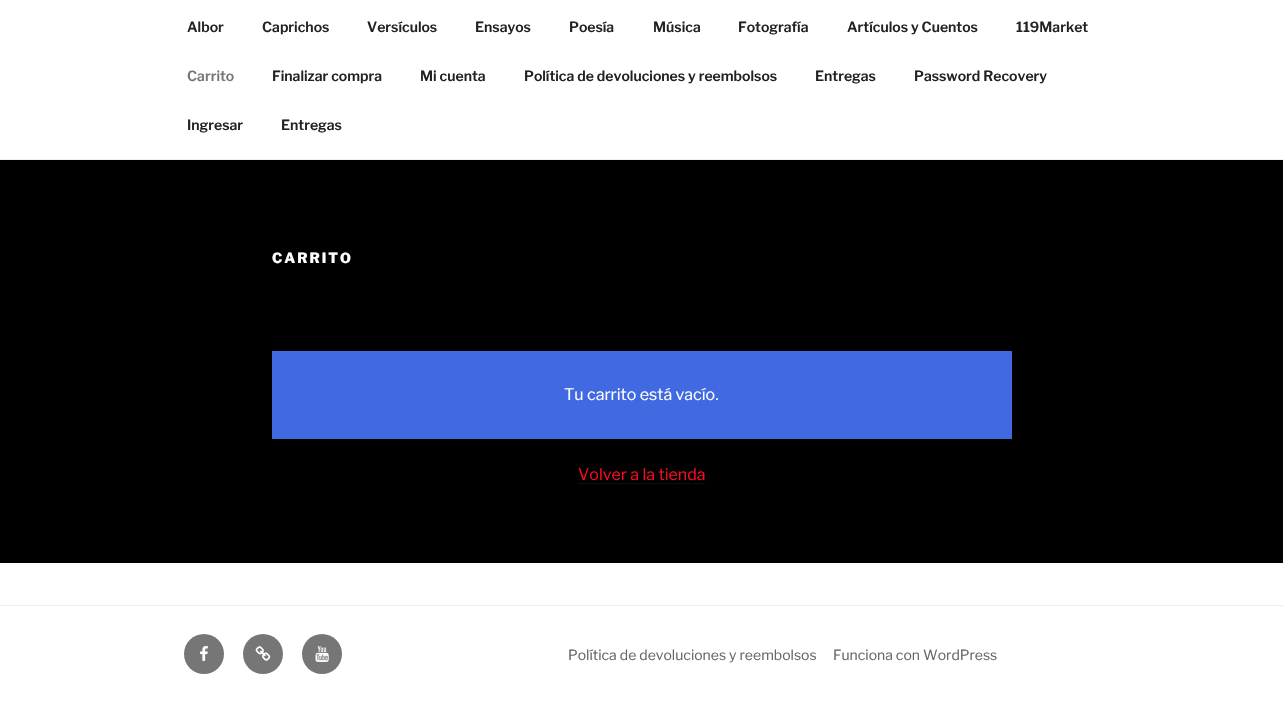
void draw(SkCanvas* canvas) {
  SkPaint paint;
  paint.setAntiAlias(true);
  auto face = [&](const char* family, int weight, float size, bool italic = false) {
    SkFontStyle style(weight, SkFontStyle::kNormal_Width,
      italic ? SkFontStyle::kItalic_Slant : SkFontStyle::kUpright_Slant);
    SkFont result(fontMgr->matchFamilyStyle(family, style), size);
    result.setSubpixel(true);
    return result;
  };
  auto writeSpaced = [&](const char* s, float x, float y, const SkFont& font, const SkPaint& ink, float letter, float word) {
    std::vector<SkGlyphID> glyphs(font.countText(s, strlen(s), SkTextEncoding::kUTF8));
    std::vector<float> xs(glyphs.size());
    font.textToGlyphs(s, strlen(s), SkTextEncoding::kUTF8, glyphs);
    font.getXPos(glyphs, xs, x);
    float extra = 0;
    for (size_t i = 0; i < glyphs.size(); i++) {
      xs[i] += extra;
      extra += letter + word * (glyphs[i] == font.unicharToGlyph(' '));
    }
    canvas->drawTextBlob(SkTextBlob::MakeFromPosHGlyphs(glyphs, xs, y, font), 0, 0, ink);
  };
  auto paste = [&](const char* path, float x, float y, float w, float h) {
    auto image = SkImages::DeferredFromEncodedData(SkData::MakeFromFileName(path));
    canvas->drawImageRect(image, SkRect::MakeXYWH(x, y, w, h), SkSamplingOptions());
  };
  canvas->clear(0xffffffff);
  {
    const struct { float x, y, w, h; SkColor color; } items[] = {
      {0, 159, 1283, 1, 0xffeeeeee},
      {0, 160, 1283, 403, 0xff000000},
      {272, 351, 740, 88, 0xff4169e1},
      {578, 483, 127, 1, 0xff0f0f0f},
      {0, 605, 1283, 1, 0xffeeeeee},
    };
    for (auto [x, y, w, h, color] : items) {
      paint.setColor(color);
      canvas->drawRect(SkRect::MakeXYWH(x, y, w, h), paint);
    }
  }
  paint.setColor(0xff767676);
  canvas->drawCircle(204, 654, 20, paint);
  paste("img/1.png", 200, 646, 8, 15);
  canvas->drawCircle(263, 654, 20, paint);
  paste("img/2.png", 255, 646, 16, 15);
  canvas->drawCircle(322, 654, 20, paint);
  paste("img/3.png", 315, 646, 14, 16);
  auto f0 = face("Libre Franklin", 600, 14);
  paint.setColor(0xff222222);
  {
    const struct { const char* s; float x, y; } items[] = {
      {"Albor", 187, 32},
      {"Caprichos", 262, 32},
      {"Versículos", 367, 32},
      {"Ensayos", 475, 32},
      {"Poesía", 569, 32},
      {"Música", 653, 32},
      {"Fotografía", 738, 32},
      {"Artículos y Cuentos", 847, 32},
      {"119Market", 1016, 32},
    };
    for (auto [s, x, y] : items) {
      canvas->drawString(s, x, y, f0, paint);
    }
  }
  paint.setColor(0xff767676);
  canvas->drawString("Carrito", 187, 81, f0, paint);
  paint.setColor(0xff222222);
  {
    const struct { const char* s; float x, y; } items[] = {
      {"Finalizar compra", 272, 81},
      {"Mi cuenta", 420, 81},
      {"Política de devoluciones y reembolsos", 524, 81},
      {"Entregas", 815, 81},
      {"Password Recovery", 914, 81},
      {"Ingresar", 187, 130},
      {"Entregas", 281, 130},
    };
    for (auto [s, x, y] : items) {
      canvas->drawString(s, x, y, f0, paint);
    }
  }
  auto f1 = face("Libre Franklin", 800, 14);
  paint.setColor(0xffffffff);
  writeSpaced("CARRITO", 272, 263, f1, paint, 2, 0);
  auto f2 = face("Libre Franklin", 400, 16);
  canvas->drawString("Tu carrito está vacío.", 564, 400, f2, paint);
  paint.setColor(0xffff0822);
  canvas->drawString("Volver a la tienda", 578, 480, f2, paint);
  auto f3 = face("Libre Franklin", 400, 14);
  paint.setColor(0xff666666);
  canvas->drawString("Política de devoluciones y reembolsos", 568, 660, f3, paint);
  canvas->drawString("Funciona con WordPress", 833, 660, f3, paint);
}
